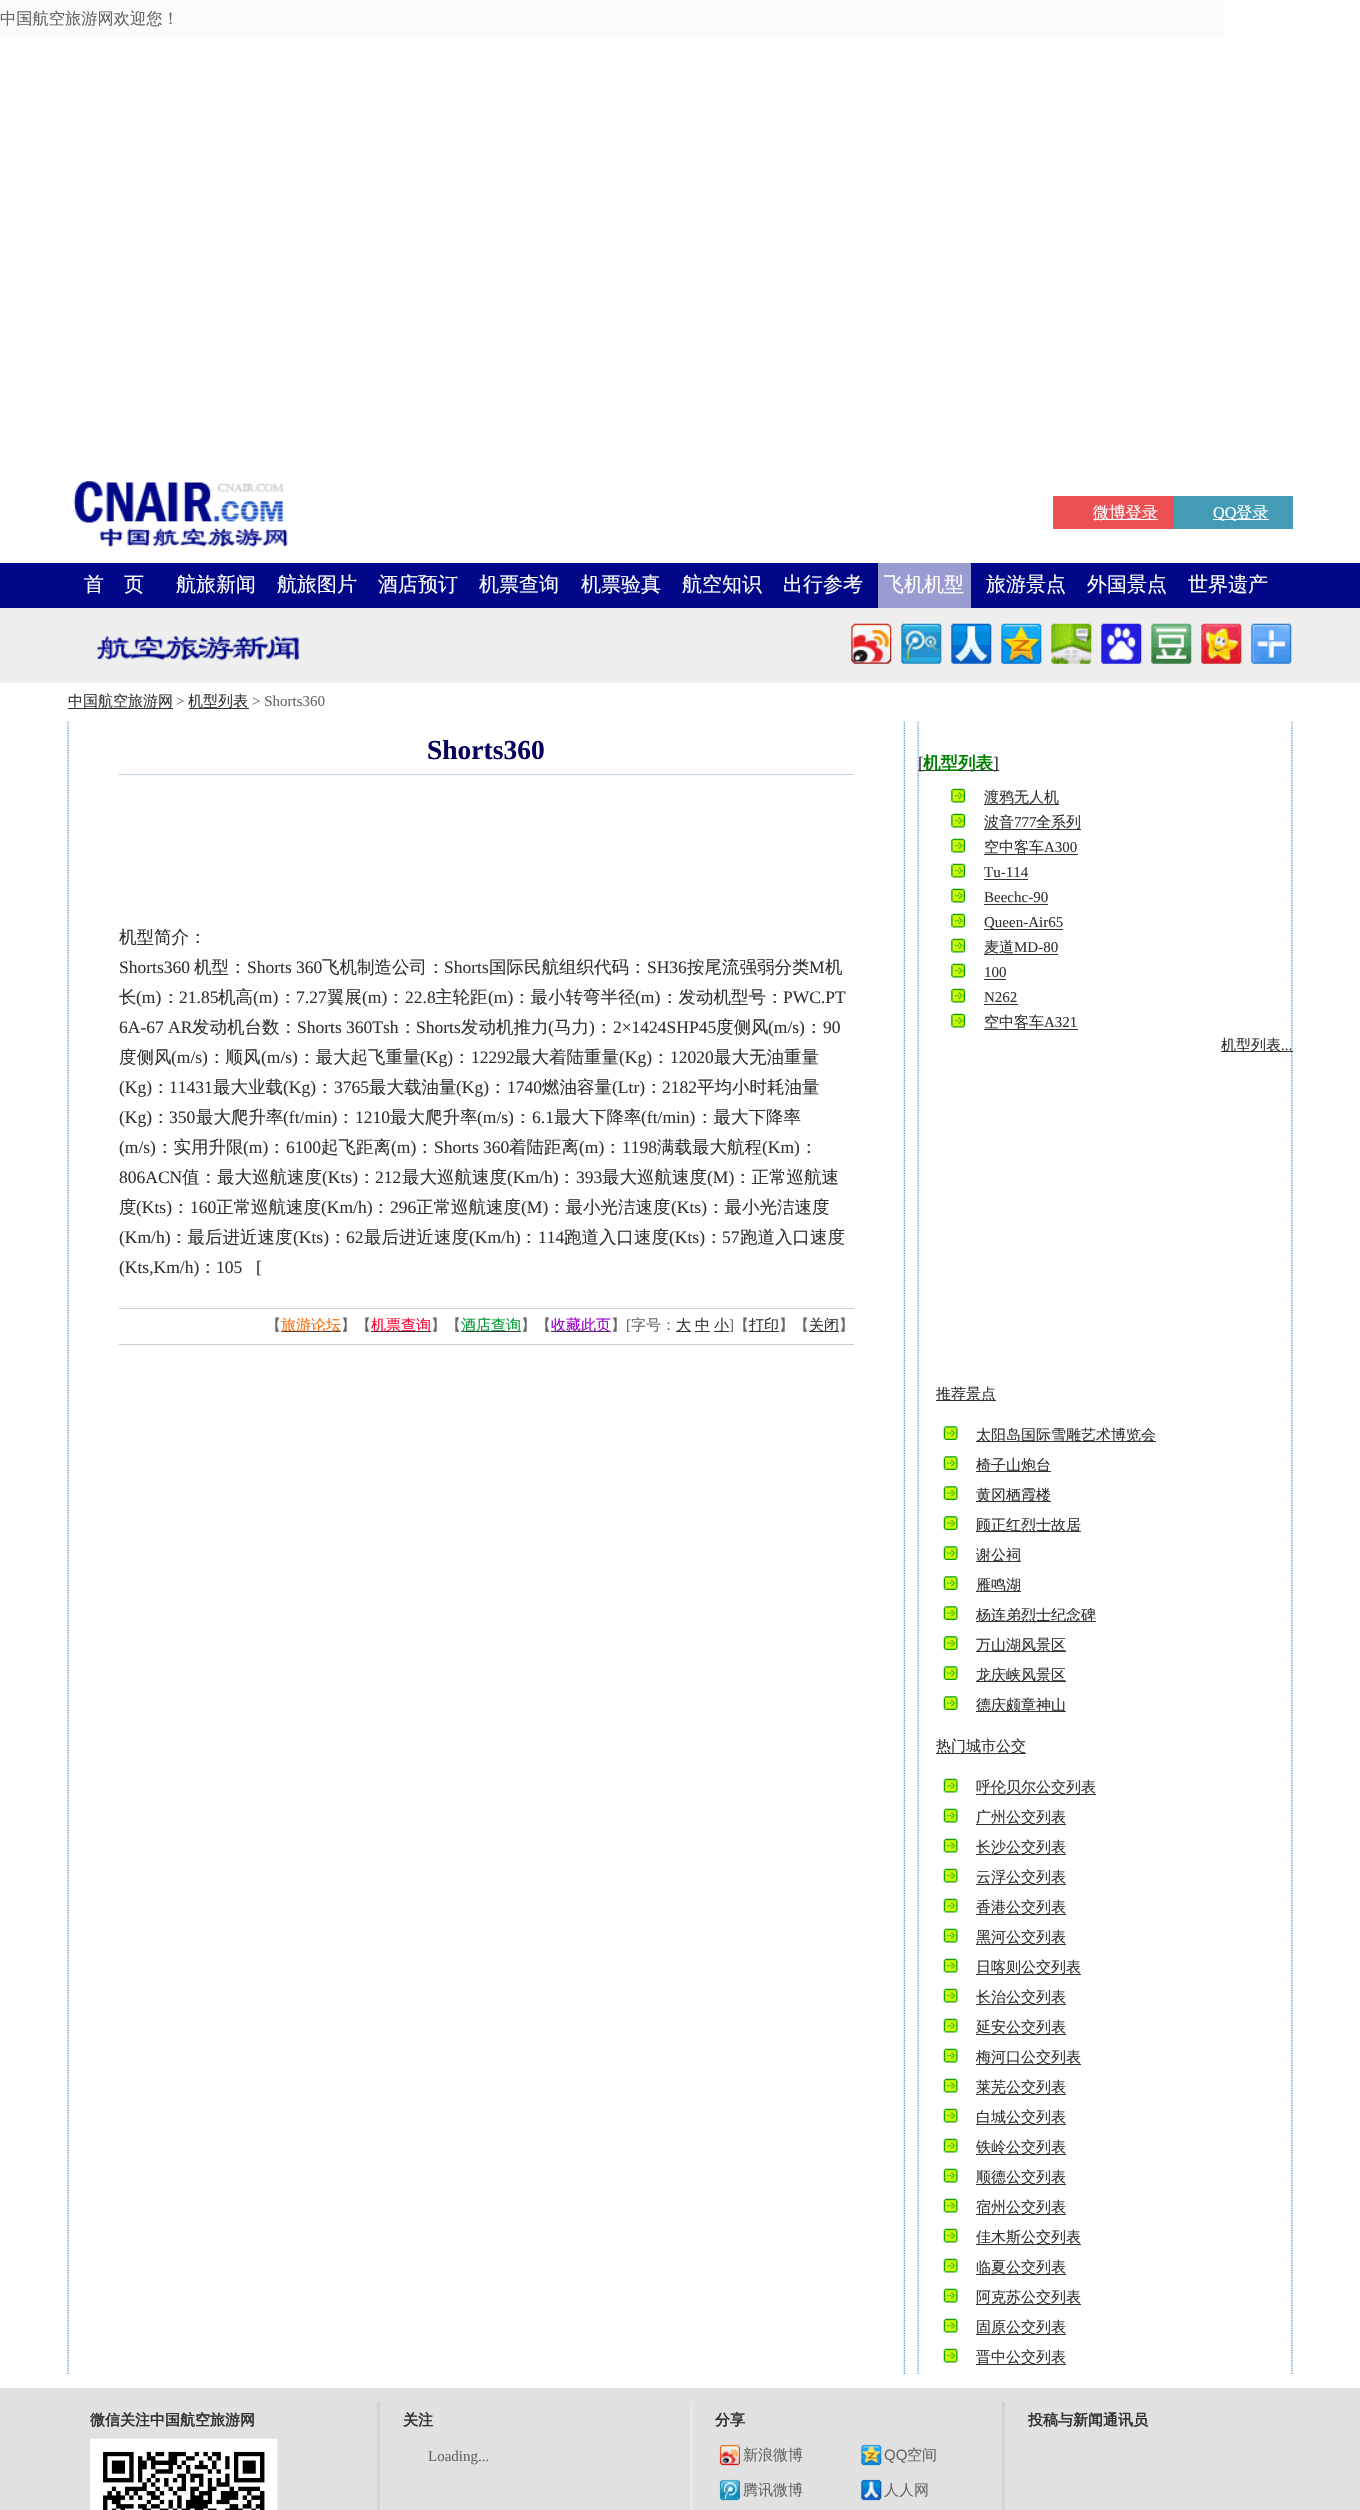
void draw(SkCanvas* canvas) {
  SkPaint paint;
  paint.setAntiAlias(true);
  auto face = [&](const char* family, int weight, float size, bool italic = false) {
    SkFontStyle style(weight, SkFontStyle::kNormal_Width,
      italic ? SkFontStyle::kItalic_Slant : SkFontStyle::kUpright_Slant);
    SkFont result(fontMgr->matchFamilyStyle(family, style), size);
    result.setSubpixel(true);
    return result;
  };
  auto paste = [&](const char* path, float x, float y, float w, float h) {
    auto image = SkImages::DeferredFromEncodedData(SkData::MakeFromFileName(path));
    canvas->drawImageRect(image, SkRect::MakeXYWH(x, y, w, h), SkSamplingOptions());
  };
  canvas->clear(0xffffffff);
  paint.setColor(0xfffcfafc);
  canvas->drawRect(SkRect::MakeXYWH(0, 0, 1225, 38), paint);
  paste("img/1.png", 73, 481, 215, 67);
  {
    const struct { float x, y, w, h; SkColor color; } items[] = {
      {1053, 496, 120, 33, 0xffeb5055},
      {1093, 519, 65, 1, 0xffffffff},
      {1173, 496, 120, 33, 0xff449bb5},
      {1213, 519, 56, 1, 0xffffffff},
      {0, 563, 1360, 45, 0xff000789},
      {878, 563, 93, 45, 0xff999cd0},
      {0, 608, 1360, 75, 0xffeeeeee},
    };
    for (auto [x, y, w, h, color] : items) {
      paint.setColor(color);
      canvas->drawRect(SkRect::MakeXYWH(x, y, w, h), paint);
    }
  }
  paste("img/2.png", 97, 636, 202, 25);
  paste("img/3.png", 851, 623, 41, 41);
  paste("img/4.png", 901, 623, 41, 41);
  paste("img/5.png", 951, 623, 41, 41);
  paste("img/6.png", 1001, 623, 41, 41);
  paste("img/7.png", 1051, 623, 41, 41);
  paste("img/8.png", 1101, 623, 41, 41);
  paste("img/9.png", 1151, 623, 41, 41);
  paste("img/10.png", 1201, 623, 41, 41);
  paste("img/11.png", 1251, 623, 41, 41);
  paint.setColor(0xff333333);
  canvas->drawRect(SkRect::MakeXYWH(68, 708, 105, 1), paint);
  canvas->drawRect(SkRect::MakeXYWH(189, 708, 60, 1), paint);
  paste("img/12.png", 67, 721, 1226, 1654);
  {
    const struct { float x, y, w, h; SkColor color; } items[] = {
      {119, 774, 735, 1, 0xffbecde5},
      {119, 1308, 735, 1, 0xffcccccc},
      {281, 1331, 60, 1, 0xff333333},
      {371, 1331, 60, 1, 0xff333333},
      {461, 1331, 60, 1, 0xff333333},
      {551, 1331, 60, 1, 0xff333333},
      {676, 1331, 15, 1, 0xff333333},
      {695, 1331, 15, 1, 0xff333333},
      {714, 1331, 15, 1, 0xff333333},
      {749, 1331, 30, 1, 0xff333333},
      {809, 1331, 30, 1, 0xff333333},
      {119, 1344, 735, 1, 0xffcccccc},
      {918, 770, 81, 1, 0xff333333},
    };
    for (auto [x, y, w, h, color] : items) {
      paint.setColor(color);
      canvas->drawRect(SkRect::MakeXYWH(x, y, w, h), paint);
    }
  }
  paste("img/13.png", 951, 788, 14, 15);
  canvas->drawRect(SkRect::MakeXYWH(984, 804, 75, 1), paint);
  paste("img/13.png", 951, 813, 14, 15);
  canvas->drawRect(SkRect::MakeXYWH(984, 829, 97, 1), paint);
  paste("img/13.png", 951, 838, 14, 15);
  canvas->drawRect(SkRect::MakeXYWH(984, 854, 94, 1), paint);
  paste("img/13.png", 951, 863, 14, 15);
  canvas->drawRect(SkRect::MakeXYWH(984, 879, 44, 1), paint);
  paste("img/13.png", 951, 888, 14, 15);
  canvas->drawRect(SkRect::MakeXYWH(984, 904, 64, 1), paint);
  paste("img/13.png", 951, 913, 14, 15);
  canvas->drawRect(SkRect::MakeXYWH(984, 929, 79, 1), paint);
  paste("img/13.png", 951, 938, 14, 15);
  canvas->drawRect(SkRect::MakeXYWH(984, 954, 74, 1), paint);
  paste("img/13.png", 951, 963, 14, 15);
  canvas->drawRect(SkRect::MakeXYWH(984, 979, 22, 1), paint);
  paste("img/13.png", 951, 988, 14, 15);
  canvas->drawRect(SkRect::MakeXYWH(984, 1004, 34, 1), paint);
  paste("img/13.png", 951, 1013, 14, 15);
  {
    const struct { float x, y, w, h; SkColor color; } items[] = {
      {984, 1029, 94, 1, 0xff333333},
      {1221, 1051, 72, 1, 0xff333333},
      {936, 1400, 60, 1, 0xff333333},
    };
    for (auto [x, y, w, h, color] : items) {
      paint.setColor(color);
      canvas->drawRect(SkRect::MakeXYWH(x, y, w, h), paint);
    }
  }
  paste("img/14.png", 943, 1426, 15, 14);
  canvas->drawRect(SkRect::MakeXYWH(976, 1441, 180, 1), paint);
  paste("img/14.png", 943, 1456, 15, 14);
  canvas->drawRect(SkRect::MakeXYWH(976, 1471, 75, 1), paint);
  paste("img/14.png", 943, 1486, 15, 14);
  canvas->drawRect(SkRect::MakeXYWH(976, 1501, 75, 1), paint);
  paste("img/14.png", 943, 1516, 15, 14);
  canvas->drawRect(SkRect::MakeXYWH(976, 1531, 105, 1), paint);
  paste("img/14.png", 943, 1546, 15, 14);
  canvas->drawRect(SkRect::MakeXYWH(976, 1561, 45, 1), paint);
  paste("img/14.png", 943, 1576, 15, 14);
  canvas->drawRect(SkRect::MakeXYWH(976, 1591, 45, 1), paint);
  paste("img/14.png", 943, 1606, 15, 14);
  canvas->drawRect(SkRect::MakeXYWH(976, 1621, 120, 1), paint);
  paste("img/14.png", 943, 1636, 15, 14);
  canvas->drawRect(SkRect::MakeXYWH(976, 1651, 90, 1), paint);
  paste("img/14.png", 943, 1666, 15, 14);
  canvas->drawRect(SkRect::MakeXYWH(976, 1681, 90, 1), paint);
  paste("img/14.png", 943, 1696, 15, 14);
  canvas->drawRect(SkRect::MakeXYWH(976, 1711, 90, 1), paint);
  canvas->drawRect(SkRect::MakeXYWH(936, 1753, 90, 1), paint);
  paste("img/15.png", 943, 1778, 15, 15);
  canvas->drawRect(SkRect::MakeXYWH(976, 1794, 120, 1), paint);
  paste("img/15.png", 943, 1808, 15, 15);
  canvas->drawRect(SkRect::MakeXYWH(976, 1824, 90, 1), paint);
  paste("img/15.png", 943, 1838, 15, 15);
  canvas->drawRect(SkRect::MakeXYWH(976, 1854, 90, 1), paint);
  paste("img/15.png", 943, 1868, 15, 15);
  canvas->drawRect(SkRect::MakeXYWH(976, 1884, 90, 1), paint);
  paste("img/15.png", 943, 1898, 15, 15);
  canvas->drawRect(SkRect::MakeXYWH(976, 1914, 90, 1), paint);
  paste("img/15.png", 943, 1928, 15, 15);
  canvas->drawRect(SkRect::MakeXYWH(976, 1944, 90, 1), paint);
  paste("img/15.png", 943, 1958, 15, 15);
  canvas->drawRect(SkRect::MakeXYWH(976, 1974, 105, 1), paint);
  paste("img/15.png", 943, 1988, 15, 15);
  canvas->drawRect(SkRect::MakeXYWH(976, 2004, 90, 1), paint);
  paste("img/15.png", 943, 2018, 15, 15);
  canvas->drawRect(SkRect::MakeXYWH(976, 2034, 90, 1), paint);
  paste("img/16.png", 943, 2048, 15, 15);
  canvas->drawRect(SkRect::MakeXYWH(976, 2064, 105, 1), paint);
  paste("img/15.png", 943, 2078, 15, 15);
  canvas->drawRect(SkRect::MakeXYWH(976, 2094, 90, 1), paint);
  paste("img/15.png", 943, 2108, 15, 15);
  canvas->drawRect(SkRect::MakeXYWH(976, 2124, 90, 1), paint);
  paste("img/15.png", 943, 2138, 15, 15);
  canvas->drawRect(SkRect::MakeXYWH(976, 2154, 90, 1), paint);
  paste("img/15.png", 943, 2168, 15, 15);
  canvas->drawRect(SkRect::MakeXYWH(976, 2184, 90, 1), paint);
  paste("img/15.png", 943, 2198, 15, 15);
  canvas->drawRect(SkRect::MakeXYWH(976, 2214, 90, 1), paint);
  paste("img/15.png", 943, 2228, 15, 15);
  canvas->drawRect(SkRect::MakeXYWH(976, 2244, 105, 1), paint);
  paste("img/15.png", 943, 2258, 15, 15);
  canvas->drawRect(SkRect::MakeXYWH(976, 2274, 90, 1), paint);
  paste("img/15.png", 943, 2288, 15, 15);
  canvas->drawRect(SkRect::MakeXYWH(976, 2304, 105, 1), paint);
  paste("img/15.png", 943, 2318, 15, 15);
  canvas->drawRect(SkRect::MakeXYWH(976, 2334, 90, 1), paint);
  paste("img/15.png", 943, 2348, 15, 15);
  {
    const struct { float x, y, w, h; SkColor color; } items[] = {
      {976, 2364, 90, 1, 0xff333333},
      {0, 2388, 1360, 122, 0xffe1e1e1},
      {377, 2402, 3, 108, 0xffd4d4d4},
    };
    for (auto [x, y, w, h, color] : items) {
      paint.setColor(color);
      canvas->drawRect(SkRect::MakeXYWH(x, y, w, h), paint);
    }
  }
  paste("img/17.png", 90, 2438, 188, 72);
  paint.setColor(0xffe8e8e8);
  canvas->drawRect(SkRect::MakeXYWH(690, 2402, 3, 108), paint);
  paint.setColor(0xffd4d4d4);
  canvas->drawRect(SkRect::MakeXYWH(1002, 2402, 3, 108), paint);
  paste("img/18.png", 719, 2444, 21, 22);
  paste("img/19.png", 861, 2444, 21, 22);
  paste("img/20.png", 719, 2479, 21, 22);
  paste("img/21.png", 861, 2479, 21, 22);
  auto f0 = face("WenQuanYi Zen Hei", 500, 16.25f);
  paint.setColor(0xff666666);
  canvas->drawString("中国航空旅游网欢迎您！", 0, 24, f0, paint);
  paint.setColor(0xffffffff);
  canvas->drawString("微博登录", 1093, 518, f0, paint);
  auto f1 = face("Liberation Serif", 400, 16.25f);
  canvas->drawString("QQ", 1213, 518, f1, paint);
  canvas->drawString("登录", 1236, 518, f0, paint);
  auto f2 = face("WenQuanYi Zen Hei", 500, 20);
  {
    const struct { const char* s; float x, y; } items[] = {
      {"首　页", 84, 591},
      {"航旅新闻", 176, 591},
      {"航旅图片", 277, 591},
      {"酒店预订", 378, 591},
      {"机票查询", 479, 591},
      {"机票验真", 581, 591},
      {"航空知识", 682, 591},
      {"出行参考", 783, 591},
      {"飞机机型", 884, 591},
      {"旅游景点", 986, 591},
      {"外国景点", 1087, 591},
      {"世界遗产", 1188, 591},
    };
    for (auto [s, x, y] : items) {
      canvas->drawString(s, x, y, f2, paint);
    }
  }
  auto f3 = face("WenQuanYi Zen Hei", 500, 15);
  paint.setColor(0xff333333);
  canvas->drawString("中国航空旅游网", 68, 706, f3, paint);
  auto f4 = face("Liberation Serif", 400, 15);
  paint.setColor(0xff666666);
  canvas->drawString(">", 176, 706, f4, paint);
  paint.setColor(0xff333333);
  canvas->drawString("机型列表", 188, 706, f3, paint);
  paint.setColor(0xff666666);
  canvas->drawString("> Shorts360", 252, 706, f4, paint);
  auto f5 = face("Liberation Serif", 700, 27.5f);
  paint.setColor(0xff03005c);
  canvas->drawString("Shorts360", 427, 759, f5, paint);
  auto f6 = face("WenQuanYi Zen Hei", 500, 17.5f);
  paint.setColor(0xff333333);
  canvas->drawString("机型简介：", 119, 943, f6, paint);
  auto f7 = face("Liberation Serif", 400, 17.5f);
  canvas->drawString("Shorts360", 119, 973, f7, paint);
  canvas->drawString("机型：", 194, 973, f6, paint);
  canvas->drawString("Shorts 360", 247, 973, f7, paint);
  canvas->drawString("飞机制造公司：", 322, 973, f6, paint);
  canvas->drawString("Shorts", 444, 973, f7, paint);
  canvas->drawString("国际民航组织代码：", 489, 973, f6, paint);
  canvas->drawString("SH36", 647, 973, f7, paint);
  canvas->drawString("按尾流强弱分类", 687, 973, f6, paint);
  canvas->drawString("M", 809, 973, f7, paint);
  canvas->drawString("机", 825, 973, f6, paint);
  canvas->drawString("长", 119, 1003, f6, paint);
  canvas->drawString("(m)", 136, 1003, f7, paint);
  canvas->drawString("：", 162, 1003, f6, paint);
  canvas->drawString("21.85", 179, 1003, f7, paint);
  canvas->drawString("机高", 218, 1003, f6, paint);
  canvas->drawString("(m)", 253, 1003, f7, paint);
  canvas->drawString("：", 279, 1003, f6, paint);
  canvas->drawString("7.27", 296, 1003, f7, paint);
  canvas->drawString("翼展", 327, 1003, f6, paint);
  canvas->drawString("(m)", 362, 1003, f7, paint);
  canvas->drawString("：", 387, 1003, f6, paint);
  canvas->drawString("22.8", 405, 1003, f7, paint);
  canvas->drawString("主轮距", 435, 1003, f6, paint);
  canvas->drawString("(m)", 488, 1003, f7, paint);
  canvas->drawString("：最小转弯半径", 513, 1003, f6, paint);
  canvas->drawString("(m)", 635, 1003, f7, paint);
  canvas->drawString("：发动机型号：", 661, 1003, f6, paint);
  canvas->drawString("PWC.PT", 783, 1003, f7, paint);
  canvas->drawString("6A-67 AR", 119, 1033, f7, paint);
  canvas->drawString("发动机台数：", 192, 1033, f6, paint);
  canvas->drawString("Shorts 360Tsh", 297, 1033, f7, paint);
  canvas->drawString("：", 399, 1033, f6, paint);
  canvas->drawString("Shorts", 416, 1033, f7, paint);
  canvas->drawString("发动机推力", 461, 1033, f6, paint);
  canvas->drawString("(", 548, 1033, f7, paint);
  canvas->drawString("马力", 554, 1033, f6, paint);
  canvas->drawString(")", 589, 1033, f7, paint);
  canvas->drawString("：", 595, 1033, f6, paint);
  canvas->drawString("2×1424SHP45", 613, 1033, f7, paint);
  canvas->drawString("度侧风", 716, 1033, f6, paint);
  canvas->drawString("(m/s)", 768, 1033, f7, paint);
  canvas->drawString("：", 805, 1033, f6, paint);
  canvas->drawString("90", 823, 1033, f7, paint);
  canvas->drawString("度侧风", 119, 1063, f6, paint);
  canvas->drawString("(m/s)", 171, 1063, f7, paint);
  canvas->drawString("：顺风", 208, 1063, f6, paint);
  canvas->drawString("(m/s)", 261, 1063, f7, paint);
  canvas->drawString("：最大起飞重量", 298, 1063, f6, paint);
  canvas->drawString("(Kg)", 420, 1063, f7, paint);
  canvas->drawString("：", 453, 1063, f6, paint);
  canvas->drawString("12292", 471, 1063, f7, paint);
  canvas->drawString("最大着陆重量", 514, 1063, f6, paint);
  canvas->drawString("(Kg)", 619, 1063, f7, paint);
  canvas->drawString("：", 652, 1063, f6, paint);
  canvas->drawString("12020", 670, 1063, f7, paint);
  canvas->drawString("最大无油重量", 714, 1063, f6, paint);
  canvas->drawString("(Kg)", 119, 1093, f7, paint);
  canvas->drawString("：", 152, 1093, f6, paint);
  canvas->drawString("11431", 169, 1093, f7, paint);
  canvas->drawString("最大业载", 213, 1093, f6, paint);
  canvas->drawString("(Kg)", 283, 1093, f7, paint);
  canvas->drawString("：", 316, 1093, f6, paint);
  canvas->drawString("3765", 334, 1093, f7, paint);
  canvas->drawString("最大载油量", 369, 1093, f6, paint);
  canvas->drawString("(Kg)", 456, 1093, f7, paint);
  canvas->drawString("：", 489, 1093, f6, paint);
  canvas->drawString("1740", 507, 1093, f7, paint);
  canvas->drawString("燃油容量", 542, 1093, f6, paint);
  canvas->drawString("(Ltr)", 612, 1093, f7, paint);
  canvas->drawString("：", 645, 1093, f6, paint);
  canvas->drawString("2182", 662, 1093, f7, paint);
  canvas->drawString("平均小时耗油量", 697, 1093, f6, paint);
  canvas->drawString("(Kg)", 119, 1123, f7, paint);
  canvas->drawString("：", 152, 1123, f6, paint);
  canvas->drawString("350", 169, 1123, f7, paint);
  canvas->drawString("最大爬升率", 196, 1123, f6, paint);
  canvas->drawString("(ft/min)", 283, 1123, f7, paint);
  canvas->drawString("：", 337, 1123, f6, paint);
  canvas->drawString("1210", 355, 1123, f7, paint);
  canvas->drawString("最大爬升率", 390, 1123, f6, paint);
  canvas->drawString("(m/s)", 477, 1123, f7, paint);
  canvas->drawString("：", 514, 1123, f6, paint);
  canvas->drawString("6.1", 532, 1123, f7, paint);
  canvas->drawString("最大下降率", 554, 1123, f6, paint);
  canvas->drawString("(ft/min)", 641, 1123, f7, paint);
  canvas->drawString("：最大下降率", 696, 1123, f6, paint);
  canvas->drawString("(m/s)", 119, 1153, f7, paint);
  canvas->drawString("：实用升限", 156, 1153, f6, paint);
  canvas->drawString("(m)", 243, 1153, f7, paint);
  canvas->drawString("：", 268, 1153, f6, paint);
  canvas->drawString("6100", 286, 1153, f7, paint);
  canvas->drawString("起飞距离", 321, 1153, f6, paint);
  canvas->drawString("(m)", 391, 1153, f7, paint);
  canvas->drawString("：", 416, 1153, f6, paint);
  canvas->drawString("Shorts 360", 434, 1153, f7, paint);
  canvas->drawString("着陆距离", 509, 1153, f6, paint);
  canvas->drawString("(m)", 579, 1153, f7, paint);
  canvas->drawString("：", 604, 1153, f6, paint);
  canvas->drawString("1198", 622, 1153, f7, paint);
  canvas->drawString("满载最大航程", 657, 1153, f6, paint);
  canvas->drawString("(Km)", 762, 1153, f7, paint);
  canvas->drawString("：", 800, 1153, f6, paint);
  canvas->drawString("806ACN", 119, 1183, f7, paint);
  canvas->drawString("值：最大巡航速度", 182, 1183, f6, paint);
  canvas->drawString("(Kts)", 322, 1183, f7, paint);
  canvas->drawString("：", 358, 1183, f6, paint);
  canvas->drawString("212", 375, 1183, f7, paint);
  canvas->drawString("最大巡航速度", 402, 1183, f6, paint);
  canvas->drawString("(Km/h)", 507, 1183, f7, paint);
  canvas->drawString("：", 558, 1183, f6, paint);
  canvas->drawString("393", 576, 1183, f7, paint);
  canvas->drawString("最大巡航速度", 602, 1183, f6, paint);
  canvas->drawString("(M)", 707, 1183, f7, paint);
  canvas->drawString("：正常巡航速", 734, 1183, f6, paint);
  canvas->drawString("度", 119, 1213, f6, paint);
  canvas->drawString("(Kts)", 136, 1213, f7, paint);
  canvas->drawString("：", 172, 1213, f6, paint);
  canvas->drawString("160", 190, 1213, f7, paint);
  canvas->drawString("正常巡航速度", 216, 1213, f6, paint);
  canvas->drawString("(Km/h)", 321, 1213, f7, paint);
  canvas->drawString("：", 372, 1213, f6, paint);
  canvas->drawString("296", 390, 1213, f7, paint);
  canvas->drawString("正常巡航速度", 416, 1213, f6, paint);
  canvas->drawString("(M)", 521, 1213, f7, paint);
  canvas->drawString("：最小光洁速度", 548, 1213, f6, paint);
  canvas->drawString("(Kts)", 671, 1213, f7, paint);
  canvas->drawString("：最小光洁速度", 707, 1213, f6, paint);
  canvas->drawString("(Km/h)", 119, 1243, f7, paint);
  canvas->drawString("：最后进近速度", 170, 1243, f6, paint);
  canvas->drawString("(Kts)", 293, 1243, f7, paint);
  canvas->drawString("：", 329, 1243, f6, paint);
  canvas->drawString("62", 346, 1243, f7, paint);
  canvas->drawString("最后进近速度", 364, 1243, f6, paint);
  canvas->drawString("(Km/h)", 469, 1243, f7, paint);
  canvas->drawString("：", 520, 1243, f6, paint);
  canvas->drawString("114", 538, 1243, f7, paint);
  canvas->drawString("跑道入口速度", 564, 1243, f6, paint);
  canvas->drawString("(Kts)", 669, 1243, f7, paint);
  canvas->drawString("：", 705, 1243, f6, paint);
  canvas->drawString("57", 722, 1243, f7, paint);
  canvas->drawString("跑道入口速度", 740, 1243, f6, paint);
  canvas->drawString("(Kts,Km/h)", 119, 1273, f7, paint);
  canvas->drawString("：", 199, 1273, f6, paint);
  canvas->drawString("105", 216, 1273, f7, paint);
  canvas->drawString("[", 256, 1273, f7, paint);
  paint.setColor(0xff666666);
  canvas->drawString("【", 266, 1330, f3, paint);
  paint.setColor(0xffff6600);
  canvas->drawString("旅游论坛", 281, 1330, f3, paint);
  paint.setColor(0xff666666);
  canvas->drawString("】【", 341, 1330, f3, paint);
  paint.setColor(0xffff0033);
  canvas->drawString("机票查询", 371, 1330, f3, paint);
  paint.setColor(0xff666666);
  canvas->drawString("】【", 431, 1330, f3, paint);
  paint.setColor(0xff009933);
  canvas->drawString("酒店查询", 461, 1330, f3, paint);
  paint.setColor(0xff666666);
  canvas->drawString("】【", 521, 1330, f3, paint);
  paint.setColor(0xff9900cc);
  canvas->drawString("收藏此页", 551, 1330, f3, paint);
  paint.setColor(0xff666666);
  canvas->drawString("】", 611, 1330, f3, paint);
  canvas->drawString("[", 626, 1330, f4, paint);
  canvas->drawString("字号：", 631, 1330, f3, paint);
  paint.setColor(0xff333333);
  {
    const struct { const char* s; float x, y; } items[] = {
      {"大", 676, 1330},
      {"中", 695, 1330},
      {"小", 714, 1330},
    };
    for (auto [s, x, y] : items) {
      canvas->drawString(s, x, y, f3, paint);
    }
  }
  paint.setColor(0xff666666);
  canvas->drawString("]", 729, 1330, f4, paint);
  canvas->drawString("【", 734, 1330, f3, paint);
  paint.setColor(0xff333333);
  canvas->drawString("打印", 749, 1330, f3, paint);
  paint.setColor(0xff666666);
  canvas->drawString("】【", 779, 1330, f3, paint);
  paint.setColor(0xff333333);
  canvas->drawString("关闭", 809, 1330, f3, paint);
  paint.setColor(0xff666666);
  canvas->drawString("】", 839, 1330, f3, paint);
  paint.setColor(0xff333333);
  canvas->drawString("[", 918, 769, f7, paint);
  auto f8 = face("WenQuanYi Zen Hei", 700, 17.5f);
  paint.setColor(0xff008000);
  canvas->drawString("机型列表", 923, 769, f8, paint);
  paint.setColor(0xff333333);
  canvas->drawString("]", 993, 769, f7, paint);
  canvas->drawString("渡鸦无人机", 984, 802, f3, paint);
  canvas->drawString("波音", 984, 827, f3, paint);
  canvas->drawString("777", 1014, 827, f4, paint);
  canvas->drawString("全系列", 1036, 827, f3, paint);
  canvas->drawString("空中客车", 984, 852, f3, paint);
  {
    const struct { const char* s; float x, y; } items[] = {
      {"A300", 1044, 852},
      {"Tu-114", 984, 877},
      {"Beechc-90", 984, 902},
      {"Queen-Air65", 984, 927},
    };
    for (auto [s, x, y] : items) {
      canvas->drawString(s, x, y, f4, paint);
    }
  }
  canvas->drawString("麦道", 984, 952, f3, paint);
  {
    const struct { const char* s; float x, y; } items[] = {
      {"MD-80", 1014, 952},
      {"100", 984, 977},
      {"N262", 984, 1002},
    };
    for (auto [s, x, y] : items) {
      canvas->drawString(s, x, y, f4, paint);
    }
  }
  canvas->drawString("空中客车", 984, 1027, f3, paint);
  canvas->drawString("A321", 1044, 1027, f4, paint);
  canvas->drawString("机型列表", 1221, 1050, f3, paint);
  canvas->drawString("...", 1281, 1050, f4, paint);
  {
    const struct { const char* s; float x, y; } items[] = {
      {"推荐景点", 936, 1399},
      {"太阳岛国际雪雕艺术博览会", 976, 1440},
      {"椅子山炮台", 976, 1470},
      {"黄冈栖霞楼", 976, 1500},
      {"顾正红烈士故居", 976, 1530},
      {"谢公祠", 976, 1560},
      {"雁鸣湖", 976, 1590},
      {"杨连弟烈士纪念碑", 976, 1620},
      {"万山湖风景区", 976, 1650},
      {"龙庆峡风景区", 976, 1680},
      {"德庆颇章神山", 976, 1710},
      {"热门城市公交", 936, 1751},
      {"呼伦贝尔公交列表", 976, 1792},
      {"广州公交列表", 976, 1822},
      {"长沙公交列表", 976, 1852},
      {"云浮公交列表", 976, 1882},
      {"香港公交列表", 976, 1912},
      {"黑河公交列表", 976, 1942},
      {"日喀则公交列表", 976, 1972},
      {"长治公交列表", 976, 2002},
      {"延安公交列表", 976, 2032},
      {"梅河口公交列表", 976, 2062},
      {"莱芜公交列表", 976, 2092},
      {"白城公交列表", 976, 2122},
      {"铁岭公交列表", 976, 2152},
      {"顺德公交列表", 976, 2182},
      {"宿州公交列表", 976, 2212},
      {"佳木斯公交列表", 976, 2242},
      {"临夏公交列表", 976, 2272},
      {"阿克苏公交列表", 976, 2302},
      {"固原公交列表", 976, 2332},
      {"晋中公交列表", 976, 2362},
    };
    for (auto [s, x, y] : items) {
      canvas->drawString(s, x, y, f3, paint);
    }
  }
  auto f9 = face("WenQuanYi Zen Hei", 700, 15);
  canvas->drawString("微信关注中国航空旅游网", 90, 2425, f9, paint);
  canvas->drawString("关注", 403, 2425, f9, paint);
  paint.setColor(0xff666666);
  canvas->drawString("Loading...", 428, 2461, f4, paint);
  paint.setColor(0xff333333);
  canvas->drawString("分享", 715, 2425, f9, paint);
  paint.setColor(0xff666666);
  canvas->drawString("新浪微博", 743, 2460, f3, paint);
  auto f10 = face("Liberation Sans", 400, 15);
  canvas->drawString("QQ", 884, 2460, f10, paint);
  {
    const struct { const char* s; float x, y; } items[] = {
      {"空间", 907, 2460},
      {"腾讯微博", 743, 2495},
      {"人人网", 884, 2495},
    };
    for (auto [s, x, y] : items) {
      canvas->drawString(s, x, y, f3, paint);
    }
  }
  paint.setColor(0xff333333);
  canvas->drawString("投稿与新闻通讯员", 1028, 2425, f9, paint);
}
